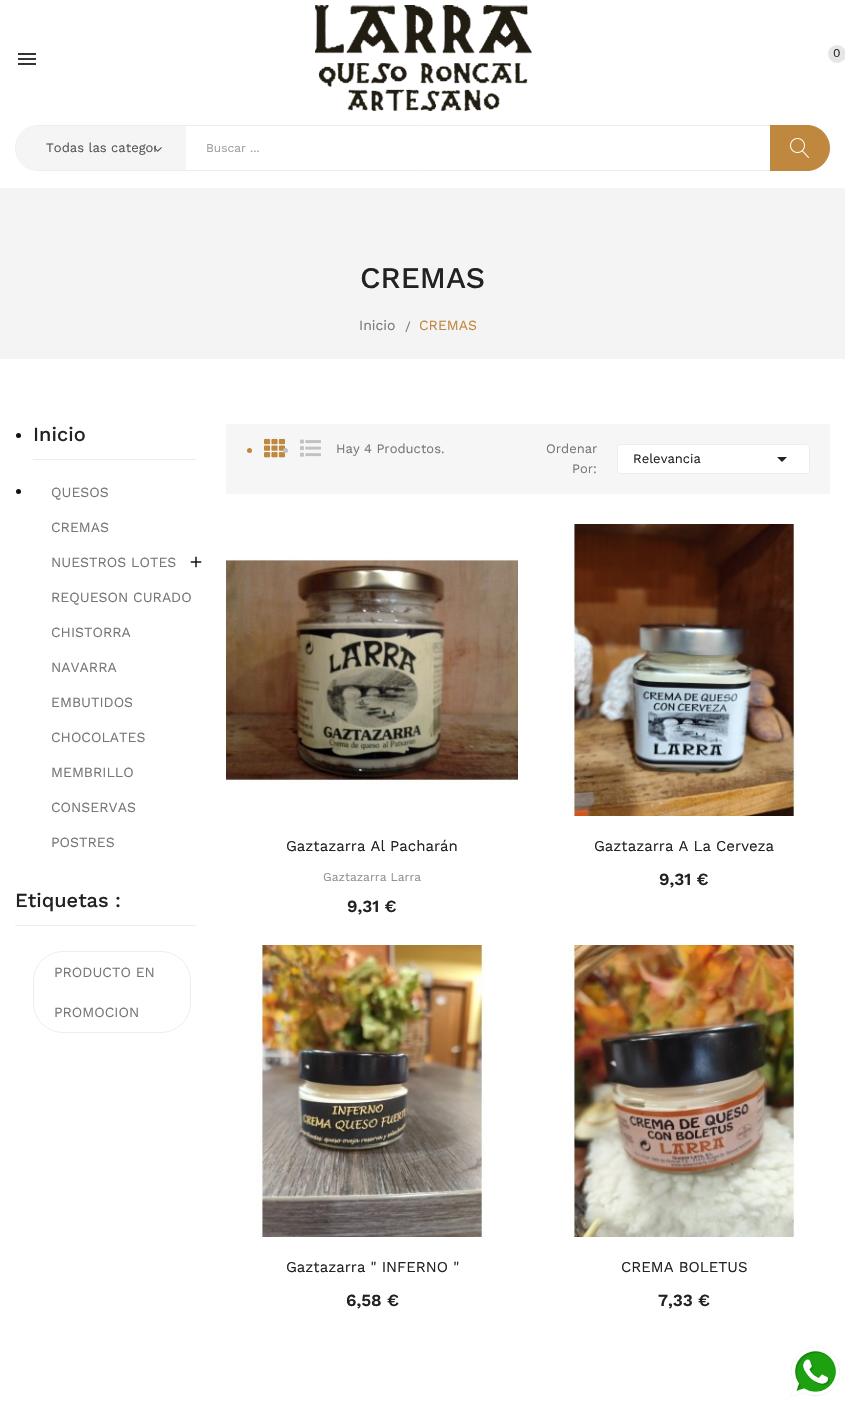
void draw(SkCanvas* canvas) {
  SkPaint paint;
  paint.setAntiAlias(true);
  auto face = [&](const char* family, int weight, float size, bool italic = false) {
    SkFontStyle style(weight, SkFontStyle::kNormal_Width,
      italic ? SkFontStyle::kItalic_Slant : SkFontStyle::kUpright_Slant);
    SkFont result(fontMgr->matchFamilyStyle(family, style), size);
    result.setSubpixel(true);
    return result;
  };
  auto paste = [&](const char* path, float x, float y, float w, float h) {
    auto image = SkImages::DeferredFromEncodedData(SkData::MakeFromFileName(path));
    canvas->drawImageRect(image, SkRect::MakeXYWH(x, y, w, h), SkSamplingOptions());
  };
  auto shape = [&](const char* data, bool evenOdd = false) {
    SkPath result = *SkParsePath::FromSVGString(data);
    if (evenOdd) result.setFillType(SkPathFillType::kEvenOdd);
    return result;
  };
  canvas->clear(0xffffffff);
  paste("img/1.png", 18, 53, 18, 12);
  paste("img/2.png", 315, 5, 217, 106);
  paint.setColor(0xffe6e6e6);
  canvas->drawCircle(837, 54, 9, paint);
  paint.setStroke(true);
  paint.setStrokeWidth(1);
  paint.setColor(0xffededed);
  canvas->drawRoundRect(SkRect::MakeXYWH(15.5f, 125.5f, 814, 45), 22.5f, 22.5f, paint);
  paint.setStroke(false);
  paint.setColor(0xfff5f5f5);
  canvas->drawPath(shape("M38 126H186V170H38C26 170 16 160 16 148C16 136 26 126 38 126Z"), paint);
  paste("img/3.png", 153, 147, 9, 5);
  paint.setColor(0xffc0883e);
  canvas->drawPath(shape("M770 125H807C819.5 125 830 135.5 830 148C830 160.5 819.5 171 807 171H770Z"), paint);
  paste("img/4.png", 790, 138, 19, 20);
  paint.setColor(0xfff4f4f4);
  canvas->drawRect(SkRect::MakeXYWH(0, 188, 845, 171), paint);
  paint.setColor(0xff111111);
  canvas->drawCircle(18.5f, 435.5f, 2.5f, paint);
  paint.setColor(0xffededed);
  canvas->drawRect(SkRect::MakeXYWH(33, 459, 163, 1), paint);
  paint.setColor(0xff111111);
  canvas->drawCircle(18.5f, 491.5f, 2.5f, paint);
  paste("img/5.png", 190, 556, 12, 12);
  paint.setColor(0xffededed);
  canvas->drawRect(SkRect::MakeXYWH(15, 925, 181, 1), paint);
  paint.setStroke(true);
  canvas->drawRoundRect(SkRect::MakeXYWH(33.5f, 951.5f, 157, 81), 29.5f, 29.5f, paint);
  paint.setStroke(false);
  paint.setColor(0xfff6f6f6);
  canvas->drawRect(SkRect::MakeXYWH(226, 424, 604, 70), paint);
  paint.setColor(0xffc0883e);
  canvas->drawCircle(249.5f, 450.5f, 2.5f, paint);
  paste("img/6.png", 264, 438, 21, 20);
  paint.setColor(0xffc1c1c1);
  canvas->drawCircle(285.5f, 450.5f, 2.5f, paint);
  paste("img/7.png", 300, 439, 21, 18);
  paint.setColor(0xffffffff);
  canvas->drawRoundRect(SkRect::MakeXYWH(617.5f, 444.5f, 192, 29), 2.5f, 2.5f, paint);
  paint.setStroke(true);
  paint.setColor(0xffededed);
  canvas->drawRoundRect(SkRect::MakeXYWH(617.5f, 444.5f, 192, 29), 2.5f, 2.5f, paint);
  paint.setStroke(false);
  paint.setColor(0xff222222);
  canvas->drawPath(shape("M777 457H787L782 462Z"), paint);
  paste("img/8.png", 226, 557, 292, 227);
  paste("img/9.png", 568, 524, 230, 292);
  paste("img/10.png", 256, 945, 230, 292);
  paste("img/11.png", 569, 945, 230, 292);
  paste("img/12.png", 790, 1347, 50, 50);
  auto f0 = face("Work Sans", 400, 12);
  canvas->drawString("0", 833, 57, f0, paint);
  canvas->save();
  canvas->clipRect(SkRect::MakeXYWH(46, 126, 110, 44));
  auto f1 = face("Work Sans", 400, 13);
  paint.setColor(0xff555555);
  canvas->drawString("Todas las categor", 46, 152, f1, paint);
  canvas->restore();
  paint.setColor(0xffa0a0a0);
  canvas->drawString("Buscar ...", 206, 152, f0, paint);
  auto f2 = face("Work Sans", 500, 30);
  paint.setColor(0xff222222);
  canvas->drawString("CREMAS", 360, 288, f2, paint);
  auto f3 = face("Work Sans", 400, 14);
  paint.setColor(0xff777777);
  canvas->drawString("Inicio", 359, 330, f3, paint);
  canvas->drawString("/", 405, 331, f1, paint);
  paint.setColor(0xffc0883e);
  canvas->drawString("CREMAS", 419, 330, f3, paint);
  auto f4 = face("Work Sans", 500, 20);
  paint.setColor(0xff222222);
  canvas->drawString("Inicio", 33, 441, f4, paint);
  paint.setColor(0xff777777);
  {
    const struct { const char* s; float x, y; } items[] = {
      {"QUESOS", 51, 497},
      {"CREMAS", 51, 532},
      {"NUESTROS LOTES", 51, 567},
      {"REQUESON CURADO", 51, 602},
      {"CHISTORRA", 51, 637},
      {"NAVARRA", 51, 672},
      {"EMBUTIDOS", 51, 707},
      {"CHOCOLATES", 51, 742},
      {"MEMBRILLO", 51, 777},
      {"CONSERVAS", 51, 812},
      {"POSTRES", 51, 847},
    };
    for (auto [s, x, y] : items) {
      canvas->drawString(s, x, y, f3, paint);
    }
  }
  paint.setColor(0xff222222);
  canvas->drawString("Etiquetas :", 15, 907, f4, paint);
  paint.setColor(0xff777777);
  canvas->drawString("PRODUCTO EN", 54, 977, f3, paint);
  canvas->drawString("PROMOCION", 54, 1017, f3, paint);
  {
    const struct { const char* s; float x, y; } items[] = {
      {"Hay 4 Productos.", 336, 453},
      {"Ordenar", 546, 453},
      {"Por:", 572, 473},
    };
    for (auto [s, x, y] : items) {
      canvas->drawString(s, x, y, f1, paint);
    }
  }
  paint.setColor(0xff222222);
  canvas->drawString("Relevancia", 633, 463, f1, paint);
  auto f5 = face("Work Sans", 400, 15);
  canvas->drawString("Gaztazarra Al Pacharán", 286, 851, f5, paint);
  paint.setColor(0xff929292);
  canvas->drawString("Gaztazarra Larra", 323, 881, f0, paint);
  auto f6 = face("Work Sans", 600, 17);
  paint.setColor(0xff222222);
  canvas->drawString("9,31 €", 347, 912, f6, paint);
  canvas->drawString("Gaztazarra A La Cerveza", 594, 851, f5, paint);
  canvas->drawString("9,31 €", 659, 885, f6, paint);
  canvas->drawString("Gaztazarra \" INFERNO \"", 286, 1272, f5, paint);
  canvas->drawString("6,58 €", 346, 1306, f6, paint);
  canvas->drawString("CREMA BOLETUS", 621, 1272, f5, paint);
  canvas->drawString("7,33 €", 658, 1306, f6, paint);
}
